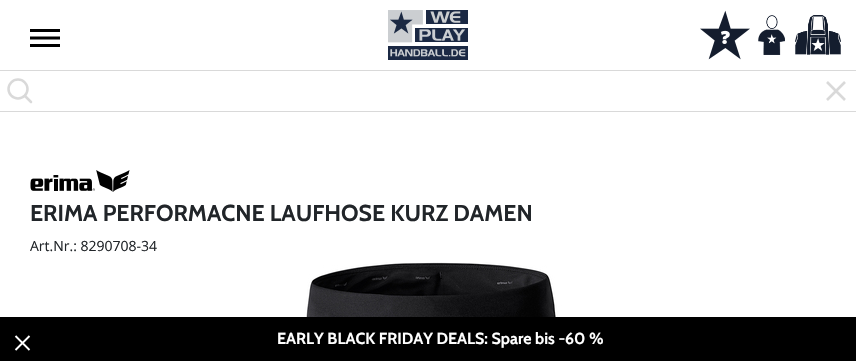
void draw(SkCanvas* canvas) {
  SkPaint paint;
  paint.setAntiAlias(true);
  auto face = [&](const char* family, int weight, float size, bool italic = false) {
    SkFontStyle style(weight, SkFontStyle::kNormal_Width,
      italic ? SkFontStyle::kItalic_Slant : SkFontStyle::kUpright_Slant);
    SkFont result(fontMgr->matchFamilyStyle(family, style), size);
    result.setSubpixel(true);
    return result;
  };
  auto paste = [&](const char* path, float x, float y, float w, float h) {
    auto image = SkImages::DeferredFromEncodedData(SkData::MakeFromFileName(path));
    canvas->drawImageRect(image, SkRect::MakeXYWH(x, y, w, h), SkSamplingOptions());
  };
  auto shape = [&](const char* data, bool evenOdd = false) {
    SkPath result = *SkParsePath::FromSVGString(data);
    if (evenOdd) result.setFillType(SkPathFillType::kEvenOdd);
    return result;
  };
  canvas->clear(0xffffffff);
  paste("img/1.png", 30, 170, 100, 22);
  paste("img/2.png", 303, 262, 259, 55);
  paint.setColor(0xff000000);
  canvas->drawRect(SkRect::MakeXYWH(30, 29, 30, 3), paint);
  paint.setStroke(true);
  paint.setStrokeWidth(3);
  canvas->drawPath(shape("M30 38H60"), paint);
  paint.setStroke(false);
  canvas->drawRect(SkRect::MakeXYWH(30, 44, 30, 3), paint);
  paste("img/3.png", 388, 10, 80, 50);
  paste("img/4.png", 700, 10, 50, 50);
  paste("img/5.png", 758, 15, 27, 40);
  paste("img/6.png", 795, 15, 46, 40);
  paint.setColor(0xffd9d9d9);
  canvas->drawRect(SkRect::MakeXYWH(0, 70, 856, 1), paint);
  canvas->drawRect(SkRect::MakeXYWH(0, 111, 856, 1), paint);
  paint.setStroke(true);
  paint.setStrokeWidth(2.5f);
  canvas->drawCircle(18, 89, 9.5f, paint);
  paint.setStrokeCap(SkPaint::kRound_Cap);
  paint.setStrokeJoin(SkPaint::kRound_Join);
  canvas->drawPath(shape("M31 102L25 96"), paint);
  paint.setStrokeWidth(2.6f);
  paint.setStrokeCap(SkPaint::kButt_Cap);
  paint.setStrokeJoin(SkPaint::kMiter_Join);
  canvas->drawPath(shape("M827 82L845 100M827 100L845 82"), paint);
  paint.setStroke(false);
  paint.setColor(0xff000000);
  canvas->drawRect(SkRect::MakeXYWH(0, 317, 856, 44), paint);
  paint.setStroke(true);
  paint.setStrokeWidth(1.9f);
  paint.setColor(0xffffffff);
  canvas->drawPath(shape("M15.5 336L29.5 350M15.5 350L29.5 336"), paint);
  auto f0 = face("Cabin", 700, 23);
  paint.setStroke(false);
  paint.setColor(0xff212529);
  canvas->drawString("ERIMA PERFORMACNE LAUFHOSE KURZ DAMEN", 30, 221, f0, paint);
  auto f1 = face("Open Sans", 400, 14);
  canvas->drawString("Art.Nr.: 8290708-34", 30, 251, f1, paint);
  auto f2 = face("Cabin", 700, 16);
  paint.setColor(0xffffffff);
  canvas->drawString("EARLY BLACK FRIDAY DEALS: Spare bis -60 %", 277, 344, f2, paint);
}
